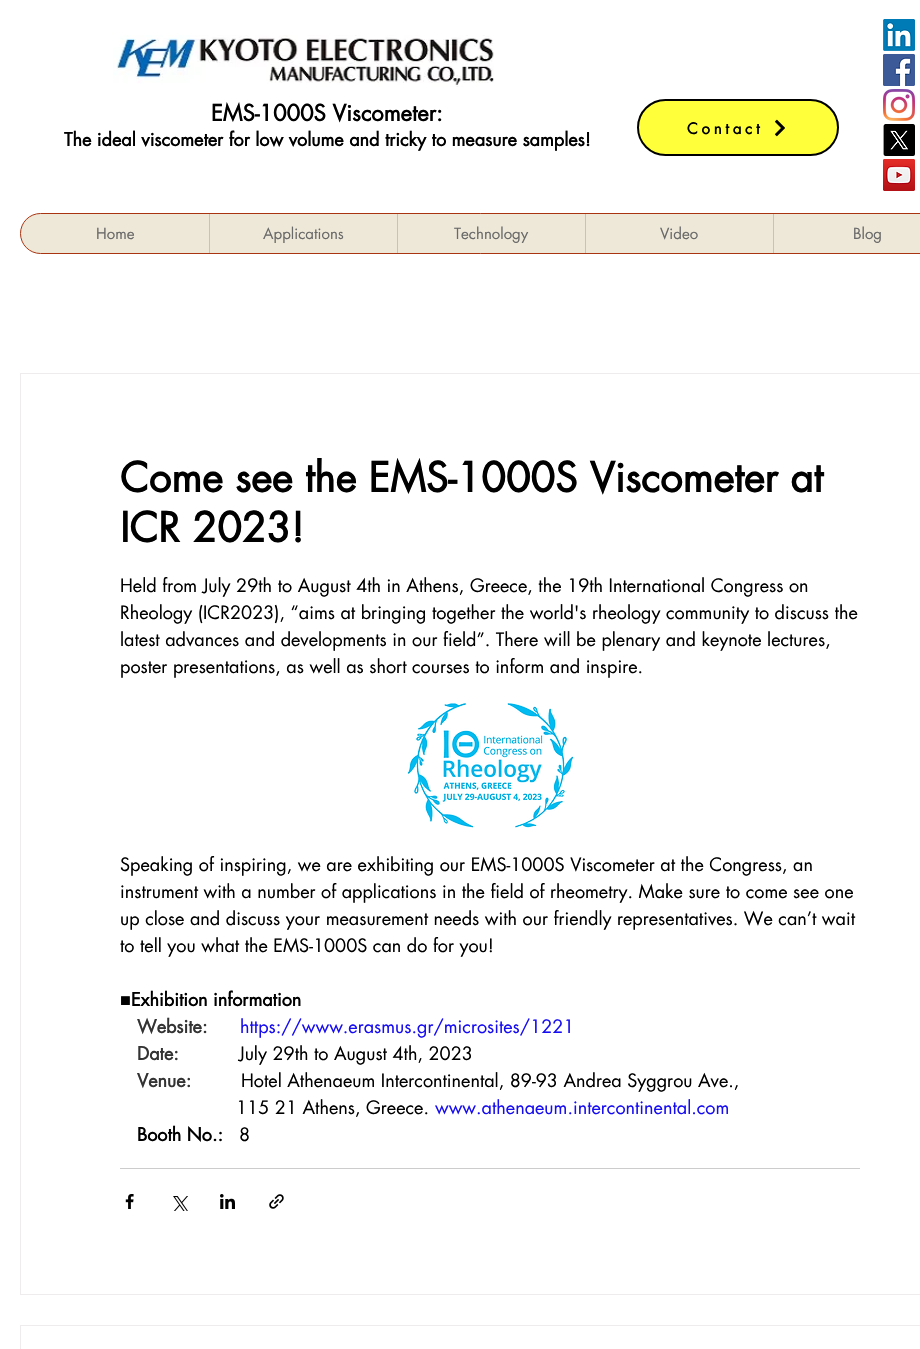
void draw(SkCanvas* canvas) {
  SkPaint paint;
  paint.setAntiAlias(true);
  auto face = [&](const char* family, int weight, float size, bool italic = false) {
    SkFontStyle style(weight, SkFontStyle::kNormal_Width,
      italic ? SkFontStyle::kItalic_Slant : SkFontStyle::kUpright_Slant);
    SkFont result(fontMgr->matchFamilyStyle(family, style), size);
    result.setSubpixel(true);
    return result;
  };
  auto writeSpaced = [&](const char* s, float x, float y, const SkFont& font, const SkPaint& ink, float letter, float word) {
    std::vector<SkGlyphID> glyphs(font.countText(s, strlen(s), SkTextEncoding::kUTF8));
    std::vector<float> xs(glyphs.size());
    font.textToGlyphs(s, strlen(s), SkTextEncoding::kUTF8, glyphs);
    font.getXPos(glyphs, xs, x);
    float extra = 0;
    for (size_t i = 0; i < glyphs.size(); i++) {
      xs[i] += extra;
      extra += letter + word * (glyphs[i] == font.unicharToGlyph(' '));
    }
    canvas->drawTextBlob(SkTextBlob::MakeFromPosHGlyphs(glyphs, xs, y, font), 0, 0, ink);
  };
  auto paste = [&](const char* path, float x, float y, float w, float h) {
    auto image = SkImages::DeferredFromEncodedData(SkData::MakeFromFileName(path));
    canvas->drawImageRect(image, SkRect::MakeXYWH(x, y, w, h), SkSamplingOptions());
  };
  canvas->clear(0xffffffff);
  paste("img/1.png", 113, 35, 381, 52);
  paste("img/2.png", 883, 19, 32, 32);
  paste("img/3.png", 883, 54, 32, 32);
  paste("img/4.png", 883, 89, 32, 32);
  paste("img/5.png", 883, 124, 32, 32);
  paste("img/6.png", 883, 159, 32, 32);
  paint.setColor(0xffffff3a);
  canvas->drawRoundRect(SkRect::MakeXYWH(638, 100, 200, 55), 27.5f, 27.5f, paint);
  paint.setStroke(true);
  paint.setStrokeWidth(2);
  paint.setColor(0xff000000);
  canvas->drawRoundRect(SkRect::MakeXYWH(638, 100, 200, 55), 27.5f, 27.5f, paint);
  paste("img/7.png", 775, 119, 10, 18);
  paint.setStroke(false);
  paint.setColor(0xffeee8d8);
  canvas->drawRoundRect(SkRect::MakeXYWH(20.5f, 213.5f, 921, 40), 20, 20, paint);
  paint.setStroke(true);
  paint.setStrokeWidth(1);
  paint.setColor(0xffa83411);
  canvas->drawRoundRect(SkRect::MakeXYWH(20.5f, 213.5f, 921, 40), 20, 20, paint);
  paint.setStroke(false);
  {
    const struct { float x, y, w, h; SkColor color; } items[] = {
      {209, 214, 1, 39, 0xffddbba6},
      {397, 214, 1, 39, 0xffddbba6},
      {585, 214, 1, 39, 0xffddbba6},
      {773, 214, 1, 39, 0xffddbba6},
    };
    for (auto [x, y, w, h, color] : items) {
      paint.setColor(color);
      canvas->drawRect(SkRect::MakeXYWH(x, y, w, h), paint);
    }
  }
  paint.setStroke(true);
  paint.setColor(0xffeeecec);
  canvas->drawRect(SkRect::MakeXYWH(20.5f, 373.5f, 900, 921), paint);
  paste("img/8.png", 407, 703, 167, 125);
  paint.setStroke(false);
  paint.setColor(0xffcccccc);
  canvas->drawRect(SkRect::MakeXYWH(120, 1168, 740, 1), paint);
  paste("img/9.png", 125, 1194, 9, 15);
  paste("img/10.png", 173, 1196, 15, 15);
  paste("img/11.png", 220, 1194, 15, 15);
  paste("img/12.png", 269, 1194, 15, 15);
  paint.setStroke(true);
  paint.setColor(0xffeeecec);
  canvas->drawRect(SkRect::MakeXYWH(20.5f, 1325.5f, 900, 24), paint);
  auto f0 = face("futura", 700, 22);
  paint.setStroke(false);
  paint.setColor(0xff000000);
  canvas->drawString("EMS-1000S Viscometer:", 211, 121, f0, paint);
  auto f1 = face("futura", 700, 18);
  canvas->drawString("The ideal viscometer for low volume and tricky to measure samples!", 64, 146, f1, paint);
  auto f2 = face("futura", 700, 15);
  writeSpaced("Contact", 687, 134, f2, paint, 3.75f, 0);
  auto f3 = face("futura", 400, 15);
  paint.setColor(0xff696969);
  {
    const struct { const char* s; float x, y; } items[] = {
      {"Home", 96, 239},
      {"Applications", 263, 239},
      {"Technology", 454, 239},
      {"Video", 660, 239},
      {"Blog", 853, 239},
    };
    for (auto [s, x, y] : items) {
      canvas->drawString(s, x, y, f3, paint);
    }
  }
  auto f4 = face("futura", 700, 40);
  paint.setColor(0xff000000);
  canvas->drawString("Come see the EMS-1000S Viscometer at", 120, 492, f4, paint);
  canvas->drawString("ICR 2023!", 120, 542, f4, paint);
  auto f5 = face("futura", 400, 18);
  {
    const struct { const char* s; float x, y; } items[] = {
      {"Held from July 29th to August 4th in Athens, Greece, the 19th International Congress on", 120, 592},
      {"Rheology (ICR2023), “aims at bringing together the world's rheology community to discuss the", 120, 619},
      {"latest advances and developments in our field”. There will be plenary and keynote lectures,", 120, 646},
      {"poster presentations, as well as short courses to inform and inspire.", 120, 673},
      {"Speaking of inspiring, we are exhibiting our EMS-1000S Viscometer at the Congress, an", 120, 871},
      {"instrument with a number of applications in the field of rheometry. Make sure to come see one", 120, 898},
      {"up close and discuss your measurement needs with our friendly representatives. We can’t wait", 120, 925},
      {"to tell you what the EMS-1000S can do for you!", 120, 952},
    };
    for (auto [s, x, y] : items) {
      canvas->drawString(s, x, y, f5, paint);
    }
  }
  auto f6 = face("Liberation Sans", 400, 18);
  canvas->drawString("■", 120, 1006, f6, paint);
  canvas->drawString("Exhibition information", 131, 1006, f1, paint);
  paint.setColor(0xff333333);
  canvas->drawString("Website:", 137, 1033, f1, paint);
  paint.setColor(0xff170df2);
  canvas->drawString("https://www.erasmus.gr/microsites/1221", 240, 1033, f5, paint);
  paint.setColor(0xff333333);
  canvas->drawString("Date:", 137, 1060, f1, paint);
  paint.setColor(0xff000000);
  canvas->drawString("July 29th to August 4th, 2023", 239, 1060, f5, paint);
  paint.setColor(0xff333333);
  canvas->drawString("Venue:", 137, 1087, f1, paint);
  paint.setColor(0xff000000);
  canvas->drawString("Hotel Athenaeum Intercontinental, 89-93 Andrea Syggrou Ave.,", 241, 1087, f5, paint);
  canvas->drawString("115 21 Athens, Greece.", 236, 1114, f5, paint);
  paint.setColor(0xff170df2);
  canvas->drawString("www.athenaeum.intercontinental.com", 435, 1114, f5, paint);
  paint.setColor(0xff000000);
  canvas->drawString("Booth No.:", 137, 1141, f1, paint);
  canvas->drawString("8", 239, 1141, f5, paint);
}
